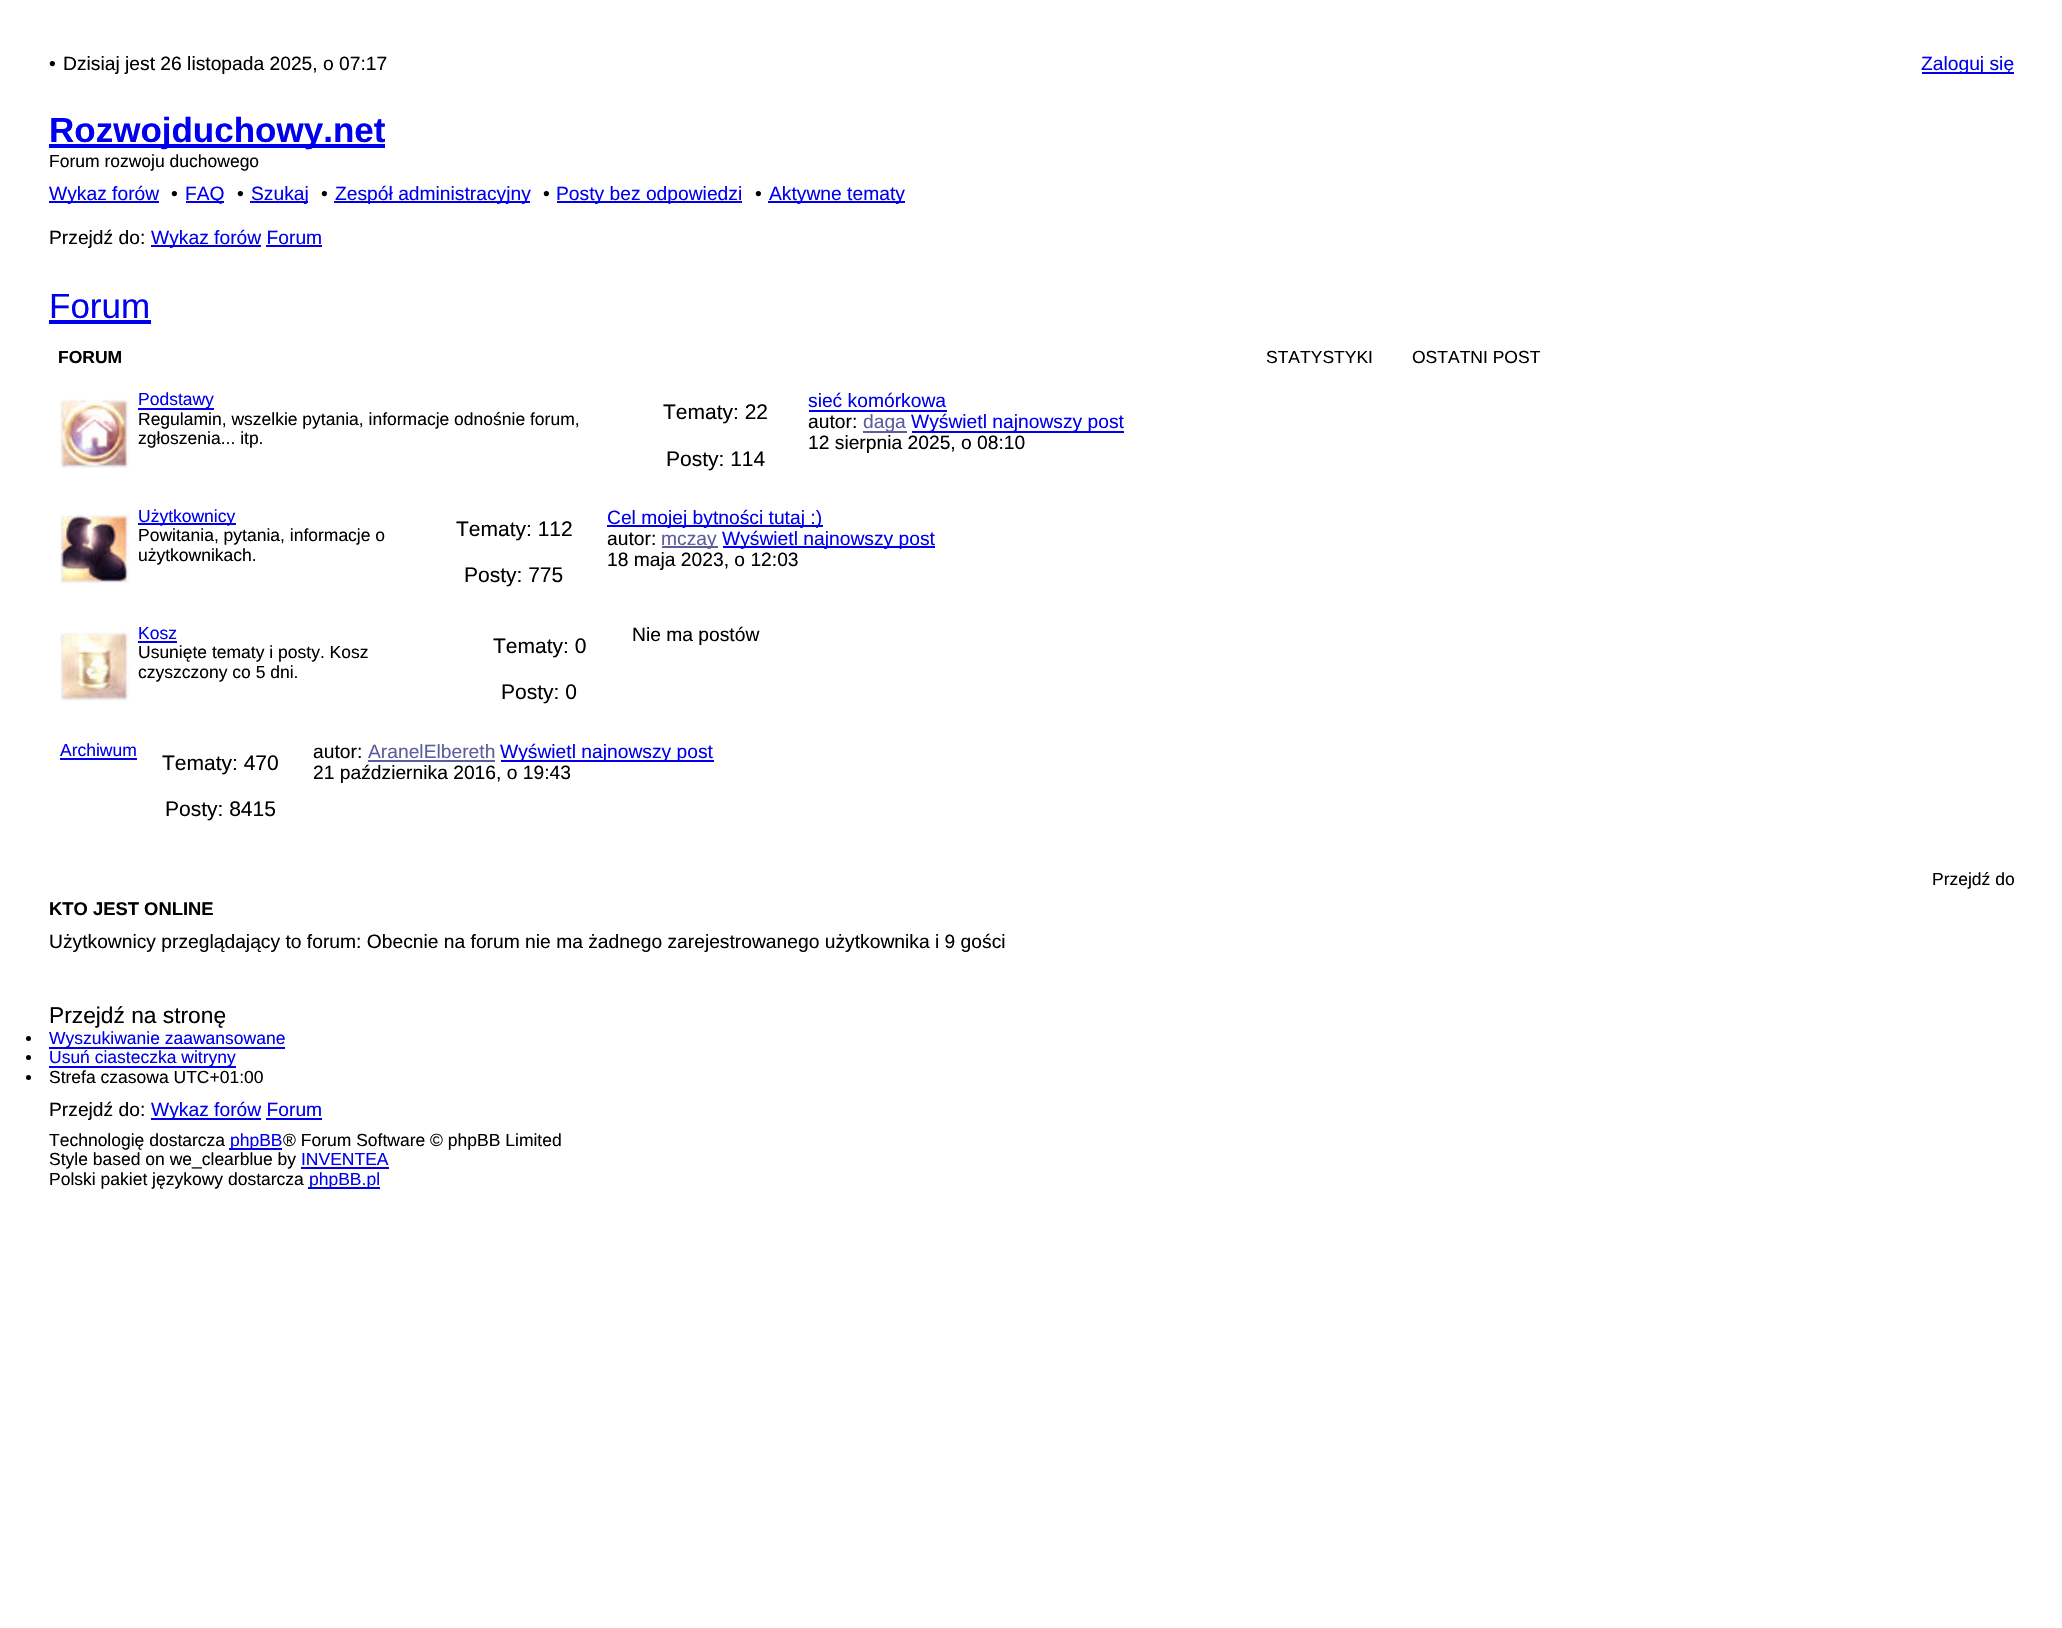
void draw(SkCanvas* canvas) {
  SkPaint paint;
  paint.setAntiAlias(true);
  auto face = [&](const char* family, int weight, float size, bool italic = false) {
    SkFontStyle style(weight, SkFontStyle::kNormal_Width,
      italic ? SkFontStyle::kItalic_Slant : SkFontStyle::kUpright_Slant);
    SkFont result(fontMgr->matchFamilyStyle(family, style), size);
    result.setSubpixel(true);
    return result;
  };
  auto paste = [&](const char* path, float x, float y, float w, float h) {
    auto image = SkImages::DeferredFromEncodedData(SkData::MakeFromFileName(path));
    canvas->drawImageRect(image, SkRect::MakeXYWH(x, y, w, h), SkSamplingOptions());
  };
  canvas->clear(0xffffffff);
  {
    const struct { float x, y, w, h; SkColor color; } items[] = {
      {1922, 72, 92, 2, 0xff0000ee},
      {49, 144, 336, 4, 0xff0000ee},
      {49, 201, 110, 2, 0xff0000ee},
      {186, 201, 38, 2, 0xff0000ee},
      {250, 201, 58, 2, 0xff0000ee},
      {334, 201, 196, 2, 0xff0000ee},
      {557, 201, 185, 2, 0xff0000ee},
      {768, 201, 137, 2, 0xff0000ee},
      {151, 245, 110, 2, 0xff0000ee},
      {266, 245, 56, 2, 0xff0000ee},
      {49, 320, 102, 4, 0xff0000ee},
    };
    for (auto [x, y, w, h, color] : items) {
      paint.setColor(color);
      canvas->drawRect(SkRect::MakeXYWH(x, y, w, h), paint);
    }
  }
  paste("img/1.png", 59, 399, 71, 70);
  {
    const struct { float x, y, w, h; SkColor color; } items[] = {
      {138, 408, 76, 2, 0xff0000ee},
      {809, 410, 138, 2, 0xff0000ee},
      {863, 431, 44, 2, 0xff5d5d9c},
      {912, 431, 212, 2, 0xff0000ee},
    };
    for (auto [x, y, w, h, color] : items) {
      paint.setColor(color);
      canvas->drawRect(SkRect::MakeXYWH(x, y, w, h), paint);
    }
  }
  paste("img/2.png", 59, 514, 71, 71);
  {
    const struct { float x, y, w, h; SkColor color; } items[] = {
      {138, 523, 98, 2, 0xff0000ee},
      {607, 525, 216, 2, 0xff0000ee},
      {662, 546, 56, 2, 0xff5d5d9c},
      {723, 546, 212, 2, 0xff0000ee},
    };
    for (auto [x, y, w, h, color] : items) {
      paint.setColor(color);
      canvas->drawRect(SkRect::MakeXYWH(x, y, w, h), paint);
    }
  }
  paste("img/3.png", 59, 631, 71, 71);
  {
    const struct { float x, y, w, h; SkColor color; } items[] = {
      {138, 641, 39, 2, 0xff0000ee},
      {60, 758, 77, 2, 0xff0000ee},
      {368, 760, 127, 2, 0xff5d5d9c},
      {501, 760, 213, 2, 0xff0000ee},
    };
    for (auto [x, y, w, h, color] : items) {
      paint.setColor(color);
      canvas->drawRect(SkRect::MakeXYWH(x, y, w, h), paint);
    }
  }
  paint.setColor(0xff000000);
  canvas->drawCircle(28.5f, 1038.5f, 2.5f, paint);
  paint.setColor(0xff0000ee);
  canvas->drawRect(SkRect::MakeXYWH(49, 1047, 236, 2), paint);
  paint.setColor(0xff000000);
  canvas->drawCircle(28.5f, 1057.5f, 2.5f, paint);
  paint.setColor(0xff0000ee);
  canvas->drawRect(SkRect::MakeXYWH(49, 1066, 187, 2), paint);
  paint.setColor(0xff000000);
  canvas->drawCircle(28.5f, 1077.5f, 2.5f, paint);
  {
    const struct { float x, y, w, h; SkColor color; } items[] = {
      {151, 1118, 110, 2, 0xff0000ee},
      {266, 1118, 56, 2, 0xff0000ee},
      {229, 1148, 53, 2, 0xff0000ee},
      {301, 1167, 88, 2, 0xff0000ee},
      {308, 1187, 72, 2, 0xff0000ee},
    };
    for (auto [x, y, w, h, color] : items) {
      paint.setColor(color);
      canvas->drawRect(SkRect::MakeXYWH(x, y, w, h), paint);
    }
  }
  auto f0 = face("Liberation Sans", 400, 19.25f);
  paint.setColor(0xff000000);
  canvas->drawString("•", 49, 70, f0, paint);
  canvas->drawString("Dzisiaj jest 26 listopada 2025, o 07:17", 63, 70, f0, paint);
  paint.setColor(0xff0000ee);
  canvas->drawString("Zaloguj się", 1921, 70, f0, paint);
  auto f1 = face("Liberation Sans", 700, 35);
  canvas->drawString("Rozwojduchowy.net", 49, 142, f1, paint);
  auto f2 = face("Liberation Sans", 400, 17.5f);
  paint.setColor(0xff000000);
  canvas->drawString("Forum rozwoju duchowego", 49, 167, f2, paint);
  paint.setColor(0xff0000ee);
  canvas->drawString("Wykaz forów", 49, 200, f0, paint);
  paint.setColor(0xff000000);
  canvas->drawString("•", 171, 200, f0, paint);
  paint.setColor(0xff0000ee);
  canvas->drawString("FAQ", 185, 200, f0, paint);
  paint.setColor(0xff000000);
  canvas->drawString("•", 237, 200, f0, paint);
  paint.setColor(0xff0000ee);
  canvas->drawString("Szukaj", 251, 200, f0, paint);
  paint.setColor(0xff000000);
  canvas->drawString("•", 321, 200, f0, paint);
  paint.setColor(0xff0000ee);
  canvas->drawString("Zespół administracyjny", 335, 200, f0, paint);
  paint.setColor(0xff000000);
  canvas->drawString("•", 543, 200, f0, paint);
  paint.setColor(0xff0000ee);
  canvas->drawString("Posty bez odpowiedzi", 556, 200, f0, paint);
  paint.setColor(0xff000000);
  canvas->drawString("•", 755, 200, f0, paint);
  paint.setColor(0xff0000ee);
  canvas->drawString("Aktywne tematy", 769, 200, f0, paint);
  paint.setColor(0xff000000);
  canvas->drawString("Przejdź do:", 49, 244, f0, paint);
  paint.setColor(0xff0000ee);
  canvas->drawString("Wykaz forów Forum", 151, 244, f0, paint);
  auto f3 = face("Liberation Sans", 400, 35);
  canvas->drawString("Forum", 49, 318, f3, paint);
  auto f4 = face("Liberation Sans", 700, 17.5f);
  paint.setColor(0xff000000);
  canvas->drawString("FORUM", 58, 363, f4, paint);
  canvas->drawString("STATYSTYKI", 1266, 363, f2, paint);
  canvas->drawString("OSTATNI POST", 1412, 363, f2, paint);
  paint.setColor(0xff0000ee);
  canvas->drawString("Podstawy", 138, 405, f2, paint);
  paint.setColor(0xff000000);
  canvas->drawString("Regulamin, wszelkie pytania, informacje odnośnie forum,", 138, 425, f2, paint);
  canvas->drawString("zgłoszenia... itp.", 138, 444, f2, paint);
  auto f5 = face("Liberation Sans", 400, 21);
  canvas->drawString("Tematy: 22", 663, 419, f5, paint);
  canvas->drawString("Posty: 114", 666, 466, f5, paint);
  paint.setColor(0xff0000ee);
  canvas->drawString("sieć komórkowa", 808, 407, f0, paint);
  paint.setColor(0xff000000);
  canvas->drawString("autor:", 808, 428, f0, paint);
  paint.setColor(0xff5d5d9c);
  canvas->drawString("daga", 863, 428, f0, paint);
  paint.setColor(0xff0000ee);
  canvas->drawString("Wyświetl najnowszy post", 911, 428, f0, paint);
  paint.setColor(0xff000000);
  canvas->drawString("12 sierpnia 2025, o 08:10", 808, 449, f0, paint);
  paint.setColor(0xff0000ee);
  canvas->drawString("Użytkownicy", 138, 522, f2, paint);
  paint.setColor(0xff000000);
  canvas->drawString("Powitania, pytania, informacje o", 138, 541, f2, paint);
  canvas->drawString("użytkownikach.", 138, 561, f2, paint);
  canvas->drawString("Tematy: 112", 456, 536, f5, paint);
  canvas->drawString("Posty: 775", 464, 582, f5, paint);
  paint.setColor(0xff0000ee);
  canvas->drawString("Cel mojej bytności tutaj :)", 607, 524, f0, paint);
  paint.setColor(0xff000000);
  canvas->drawString("autor:", 607, 545, f0, paint);
  paint.setColor(0xff5d5d9c);
  canvas->drawString("mczay", 661, 545, f0, paint);
  paint.setColor(0xff0000ee);
  canvas->drawString("Wyświetl najnowszy post", 722, 545, f0, paint);
  paint.setColor(0xff000000);
  canvas->drawString("18 maja 2023, o 12:03", 607, 566, f0, paint);
  paint.setColor(0xff0000ee);
  canvas->drawString("Kosz", 138, 639, f2, paint);
  paint.setColor(0xff000000);
  canvas->drawString("Usunięte tematy i posty. Kosz", 138, 658, f2, paint);
  canvas->drawString("czyszczony co 5 dni.", 138, 678, f2, paint);
  canvas->drawString("Nie ma postów", 632, 641, f0, paint);
  canvas->drawString("Tematy: 0", 493, 653, f5, paint);
  canvas->drawString("Posty: 0", 501, 699, f5, paint);
  paint.setColor(0xff0000ee);
  canvas->drawString("Archiwum", 60, 756, f2, paint);
  paint.setColor(0xff000000);
  canvas->drawString("Tematy: 470", 162, 770, f5, paint);
  canvas->drawString("Posty: 8415", 165, 816, f5, paint);
  canvas->drawString("autor:", 313, 758, f0, paint);
  paint.setColor(0xff5d5d9c);
  canvas->drawString("AranelElbereth", 368, 758, f0, paint);
  paint.setColor(0xff0000ee);
  canvas->drawString("Wyświetl najnowszy post", 500, 758, f0, paint);
  paint.setColor(0xff000000);
  canvas->drawString("21 października 2016, o 19:43", 313, 779, f0, paint);
  canvas->drawString("Przejdź do", 1932, 885, f2, paint);
  auto f6 = face("Liberation Sans", 700, 18.4f);
  canvas->drawString("KTO JEST ONLINE", 49, 915, f6, paint);
  canvas->drawString("Użytkownicy przeglądający to forum: Obecnie na forum nie ma żadnego zarejestrowanego użytkownika i 9 gości", 49, 948, f0, paint);
  auto f7 = face("Liberation Sans", 400, 22.75f);
  canvas->drawString("Przejdź na stronę", 49, 1023, f7, paint);
  paint.setColor(0xff0000ee);
  canvas->drawString("Wyszukiwanie zaawansowane", 49, 1044, f2, paint);
  canvas->drawString("Usuń ciasteczka witryny", 49, 1063, f2, paint);
  paint.setColor(0xff000000);
  canvas->drawString("Strefa czasowa UTC+01:00", 49, 1083, f2, paint);
  canvas->drawString("Przejdź do:", 49, 1116, f0, paint);
  paint.setColor(0xff0000ee);
  canvas->drawString("Wykaz forów Forum", 151, 1116, f0, paint);
  paint.setColor(0xff000000);
  canvas->drawString("Technologię dostarcza", 49, 1146, f2, paint);
  paint.setColor(0xff0000ee);
  canvas->drawString("phpBB", 230, 1146, f2, paint);
  paint.setColor(0xff000000);
  canvas->drawString("® Forum Software © phpBB Limited", 283, 1146, f2, paint);
  canvas->drawString("Style based on we_clearblue by", 49, 1165, f2, paint);
  paint.setColor(0xff0000ee);
  canvas->drawString("INVENTEA", 301, 1165, f2, paint);
  paint.setColor(0xff000000);
  canvas->drawString("Polski pakiet językowy dostarcza", 49, 1185, f2, paint);
  paint.setColor(0xff0000ee);
  canvas->drawString("phpBB.pl", 309, 1185, f2, paint);
}
